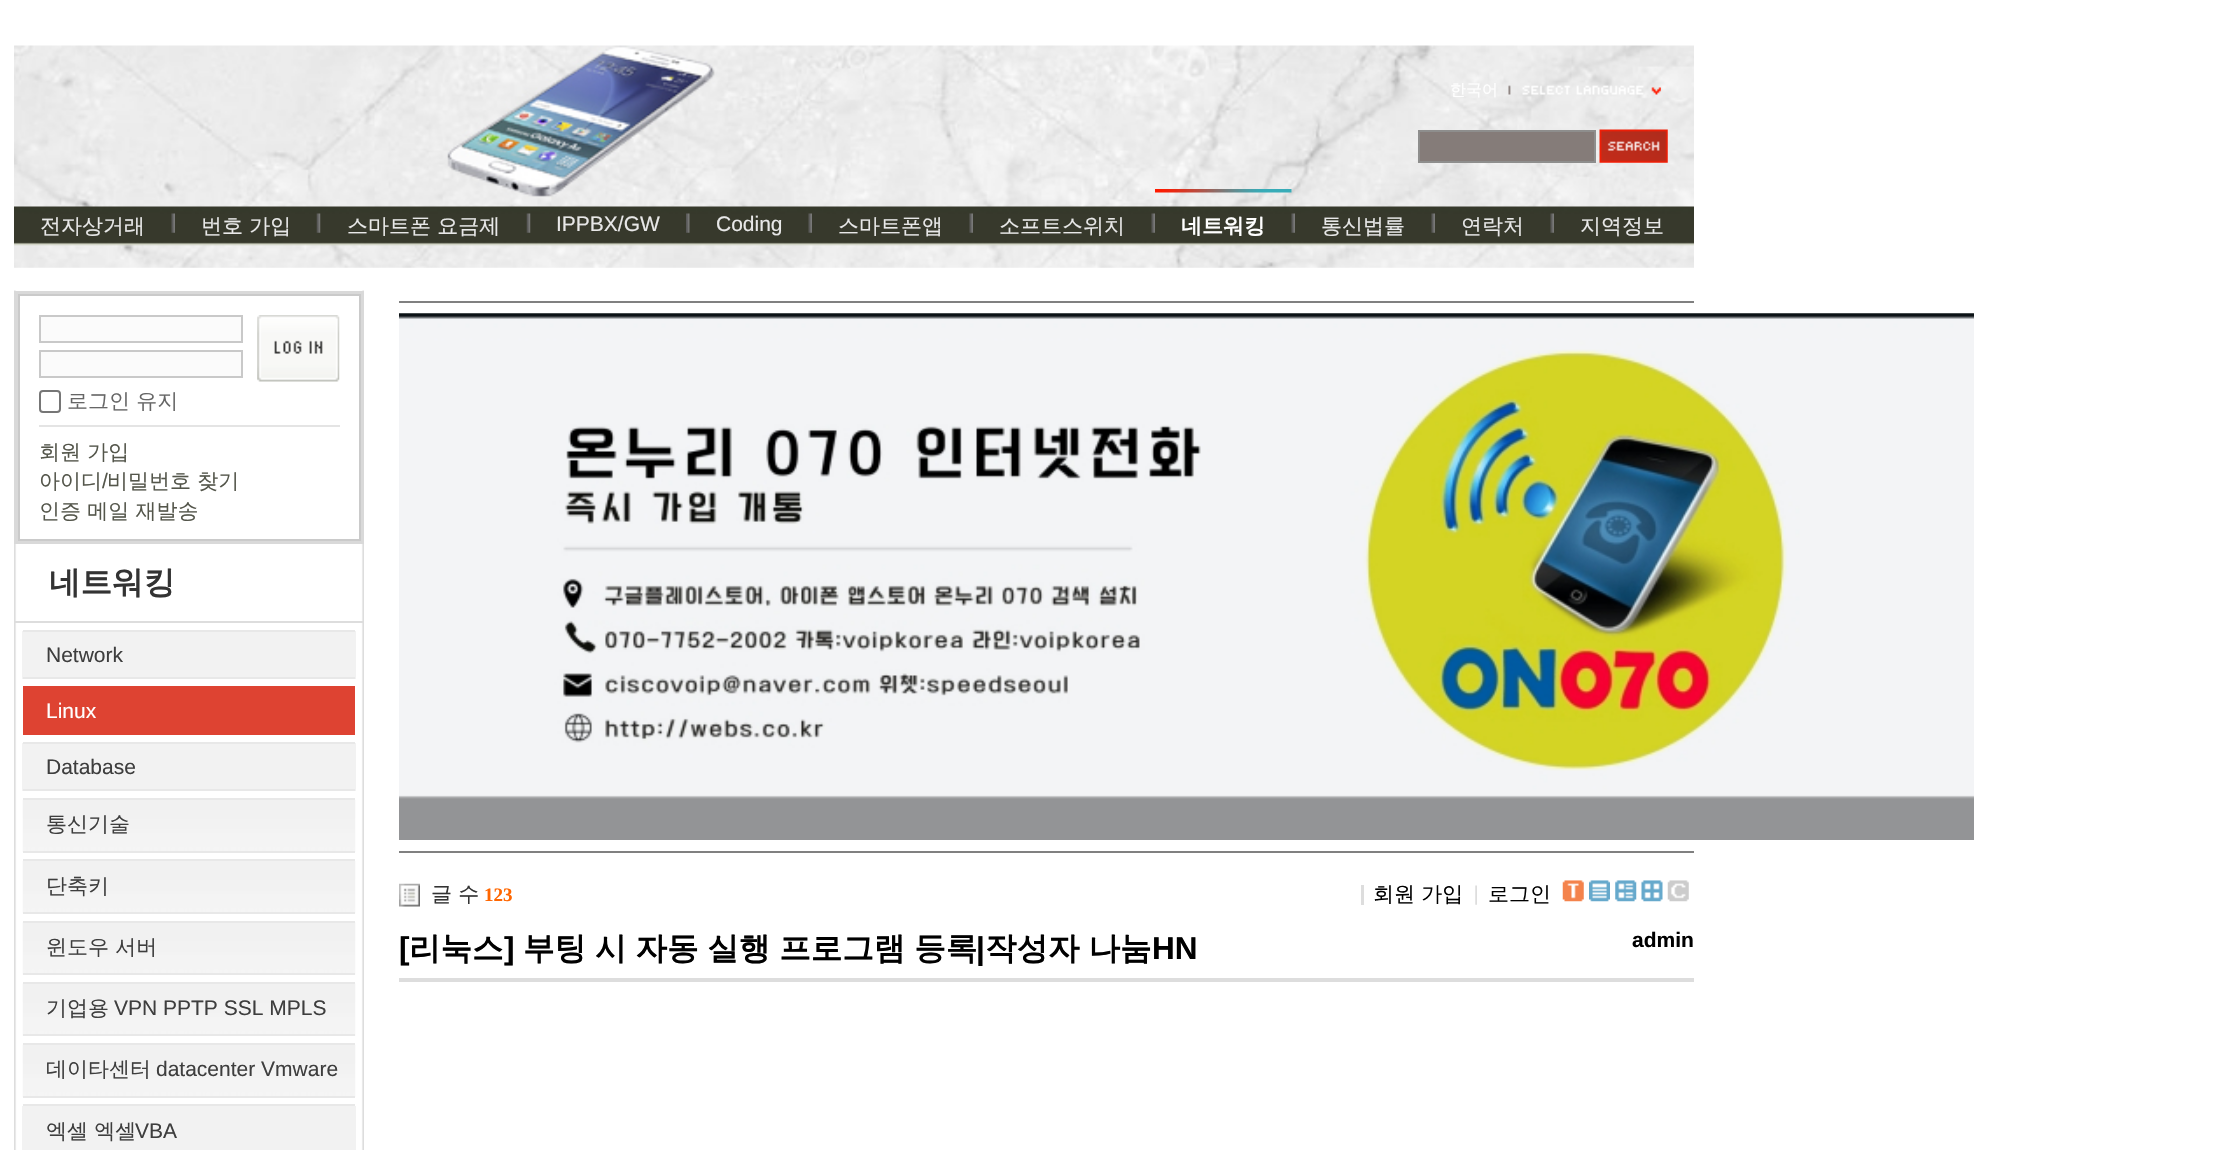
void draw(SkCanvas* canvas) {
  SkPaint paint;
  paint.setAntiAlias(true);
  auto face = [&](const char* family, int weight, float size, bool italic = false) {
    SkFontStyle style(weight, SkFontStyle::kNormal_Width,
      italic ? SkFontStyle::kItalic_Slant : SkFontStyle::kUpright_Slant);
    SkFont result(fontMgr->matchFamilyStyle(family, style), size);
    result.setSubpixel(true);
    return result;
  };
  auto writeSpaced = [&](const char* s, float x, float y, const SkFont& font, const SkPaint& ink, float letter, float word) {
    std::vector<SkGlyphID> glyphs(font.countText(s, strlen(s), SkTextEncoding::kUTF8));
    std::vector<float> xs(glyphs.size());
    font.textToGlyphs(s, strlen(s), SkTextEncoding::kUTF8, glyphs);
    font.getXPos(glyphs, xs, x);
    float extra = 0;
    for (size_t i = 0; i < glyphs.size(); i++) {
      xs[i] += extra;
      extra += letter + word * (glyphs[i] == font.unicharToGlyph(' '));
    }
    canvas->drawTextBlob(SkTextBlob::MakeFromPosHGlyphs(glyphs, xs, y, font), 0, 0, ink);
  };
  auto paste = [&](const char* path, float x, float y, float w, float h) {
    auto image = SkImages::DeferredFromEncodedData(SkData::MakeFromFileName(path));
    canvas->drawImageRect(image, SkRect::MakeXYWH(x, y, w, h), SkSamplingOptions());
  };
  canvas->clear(0xffffffff);
  paste("img/1.png", 14, 45, 1680, 223);
  paste("img/2.png", 1508, 85, 153, 10);
  paint.setColor(0xff857c79);
  canvas->drawRect(SkRect::MakeXYWH(1419, 131, 176, 31), paint);
  paint.setStroke(true);
  paint.setStrokeWidth(2);
  paint.setColor(0xff8e8e8d);
  canvas->drawRect(SkRect::MakeXYWH(1419, 131, 176, 31), paint);
  paste("img/3.png", 1599, 129, 69, 34);
  paste("img/4.png", 171, 213, 4, 20);
  paste("img/5.png", 316, 213, 5, 20);
  paste("img/5.png", 526, 213, 5, 20);
  paste("img/6.png", 686, 213, 4, 20);
  paste("img/7.png", 808, 213, 4, 20);
  paste("img/7.png", 969, 213, 4, 20);
  paste("img/8.png", 1151, 213, 4, 20);
  paste("img/9.png", 1155, 189, 137, 4);
  paste("img/10.png", 1291, 213, 4, 20);
  paste("img/11.png", 1431, 213, 4, 20);
  paste("img/11.png", 1550, 213, 4, 20);
  paste("img/12.png", 14, 290, 350, 860);
  paint.setStrokeWidth(4);
  paint.setColor(0xffd9d9d9);
  canvas->drawRect(SkRect::MakeXYWH(16, 293, 346, 249), paint);
  paint.setStrokeWidth(2);
  paint.setColor(0xffcacaca);
  canvas->drawRect(SkRect::MakeXYWH(19, 295, 341, 245), paint);
  paste("img/13.png", 257, 315, 83, 67);
  paint.setStroke(false);
  paint.setColor(0xfffbfbfb);
  canvas->drawRect(SkRect::MakeXYWH(40, 316, 202, 26), paint);
  paint.setStroke(true);
  paint.setColor(0xffc9c9c9);
  canvas->drawRect(SkRect::MakeXYWH(40, 316, 202, 26), paint);
  paint.setStroke(false);
  paint.setColor(0xfffbfbfb);
  canvas->drawRect(SkRect::MakeXYWH(40, 351, 202, 26), paint);
  paint.setStroke(true);
  paint.setColor(0xffc9c9c9);
  canvas->drawRect(SkRect::MakeXYWH(40, 351, 202, 26), paint);
  paint.setColor(0xff767676);
  canvas->drawRoundRect(SkRect::MakeXYWH(40, 391, 20, 21), 3, 3, paint);
  paint.setStroke(false);
  {
    const struct { float x, y, w, h; SkColor color; } items[] = {
      {39, 425, 301, 2, 0xffe4e4e4},
      {14, 621, 350, 2, 0xffdddddd},
      {22, 631, 334, 48, 0xfff2f2f2},
      {23, 630, 332, 2, 0xffe8e8e8},
      {23, 677, 332, 2, 0xffe8e8e8},
      {23, 686, 332, 49, 0xffde4332},
      {22, 743, 334, 48, 0xfff2f2f2},
      {23, 742, 332, 2, 0xffe8e8e8},
      {23, 789, 332, 2, 0xffe8e8e8},
    };
    for (auto [x, y, w, h, color] : items) {
      paint.setColor(color);
      canvas->drawRect(SkRect::MakeXYWH(x, y, w, h), paint);
    }
  }
  paste("img/14.png", 22, 799, 334, 53);
  canvas->drawRect(SkRect::MakeXYWH(23, 798, 332, 2), paint);
  canvas->drawRect(SkRect::MakeXYWH(23, 851, 332, 2), paint);
  paste("img/15.png", 22, 861, 334, 53);
  canvas->drawRect(SkRect::MakeXYWH(23, 859, 332, 2), paint);
  canvas->drawRect(SkRect::MakeXYWH(23, 912, 332, 2), paint);
  paste("img/16.png", 22, 922, 334, 53);
  canvas->drawRect(SkRect::MakeXYWH(23, 921, 332, 2), paint);
  canvas->drawRect(SkRect::MakeXYWH(23, 973, 332, 2), paint);
  paste("img/17.png", 22, 983, 334, 53);
  canvas->drawRect(SkRect::MakeXYWH(23, 982, 332, 2), paint);
  canvas->drawRect(SkRect::MakeXYWH(23, 1034, 332, 2), paint);
  paste("img/18.png", 22, 1044, 334, 53);
  {
    const struct { float x, y, w, h; SkColor color; } items[] = {
      {23, 1043, 332, 2, 0xffe8e8e8},
      {23, 1096, 332, 2, 0xffe8e8e8},
      {22, 1106, 334, 44, 0xfff2f2f2},
      {23, 1104, 332, 2, 0xffe8e8e8},
      {399, 301, 1295, 2, 0xff808080},
    };
    for (auto [x, y, w, h, color] : items) {
      paint.setColor(color);
      canvas->drawRect(SkRect::MakeXYWH(x, y, w, h), paint);
    }
  }
  paste("img/19.png", 399, 313, 1575, 527);
  canvas->drawRect(SkRect::MakeXYWH(399, 851, 1295, 2), paint);
  paste("img/20.png", 399, 883, 21, 24);
  paint.setColor(0xffdddddd);
  canvas->drawRect(SkRect::MakeXYWH(1361, 885, 3, 20), paint);
  paste("img/21.png", 1475, 885, 2, 20);
  paste("img/22.png", 1562, 880, 22, 22);
  paste("img/23.png", 1589, 880, 21, 22);
  paste("img/24.png", 1615, 880, 22, 22);
  paste("img/25.png", 1641, 880, 22, 22);
  paste("img/26.png", 1667, 880, 22, 22);
  canvas->drawRect(SkRect::MakeXYWH(399, 978, 1295, 4), paint);
  auto f0 = face("WenQuanYi Zen Hei", 500, 16);
  paint.setColor(0xffffffff);
  canvas->drawString("한국어", 1450, 95, f0, paint);
  auto f1 = face("WenQuanYi Zen Hei", 500, 21);
  paint.setColor(0xffe8e8e8);
  {
    const struct { const char* s; float x, y; } items[] = {
      {"전자상거래", 40, 233},
      {"번호 가입", 201, 233},
      {"스마트폰 요금제", 347, 233},
    };
    for (auto [s, x, y] : items) {
      canvas->drawString(s, x, y, f1, paint);
    }
  }
  auto f2 = face("Liberation Sans", 400, 21);
  canvas->drawString("IPPBX/GW", 556, 231, f2, paint);
  canvas->drawString("Coding", 716, 231, f2, paint);
  canvas->drawString("스마트폰앱", 838, 233, f1, paint);
  canvas->drawString("소프트스위치", 999, 233, f1, paint);
  auto f3 = face("WenQuanYi Zen Hei", 700, 21);
  paint.setColor(0xffffffff);
  canvas->drawString("네트워킹", 1181, 233, f3, paint);
  paint.setColor(0xffe8e8e8);
  {
    const struct { const char* s; float x, y; } items[] = {
      {"통신법률", 1321, 233},
      {"연락처", 1461, 233},
      {"지역정보", 1580, 233},
    };
    for (auto [s, x, y] : items) {
      canvas->drawString(s, x, y, f1, paint);
    }
  }
  paint.setColor(0xff666666);
  canvas->drawString("로그인 유지", 67, 408, f1, paint);
  paint.setColor(0xff54564b);
  canvas->drawString("회원 가입", 39, 459, f1, paint);
  canvas->drawString("아이디", 39, 488, f1, paint);
  canvas->drawString("/", 102, 488, f2, paint);
  canvas->drawString("비밀번호 찾기", 107, 488, f1, paint);
  canvas->drawString("인증 메일 재발송", 39, 518, f1, paint);
  auto f4 = face("WenQuanYi Zen Hei", 700, 31.5f);
  paint.setColor(0xff333333);
  canvas->drawString("네트워킹", 49, 593, f4, paint);
  paint.setColor(0xff3e3e3e);
  canvas->drawString("Network", 46, 662, f2, paint);
  paint.setColor(0xffffffff);
  canvas->drawString("Linux", 46, 718, f2, paint);
  paint.setColor(0xff3e3e3e);
  canvas->drawString("Database", 46, 774, f2, paint);
  {
    const struct { const char* s; float x, y; } items[] = {
      {"통신기술", 46, 831},
      {"단축키", 46, 893},
      {"윈도우 서버", 46, 954},
      {"기업용", 46, 1015},
    };
    for (auto [s, x, y] : items) {
      canvas->drawString(s, x, y, f1, paint);
    }
  }
  canvas->drawString("VPN PPTP SSL MPLS", 114, 1015, f2, paint);
  canvas->drawString("데이타센터", 46, 1076, f1, paint);
  canvas->drawString("datacenter Vmware", 156, 1076, f2, paint);
  canvas->drawString("엑셀 엑셀", 46, 1138, f1, paint);
  canvas->drawString("VBA", 135, 1138, f2, paint);
  paint.setColor(0xff333333);
  canvas->drawString("글 수", 431, 901, f1, paint);
  auto f5 = face("Liberation Serif", 700, 19);
  paint.setColor(0xffff6600);
  canvas->drawString("123", 484, 901, f5, paint);
  paint.setColor(0xff000000);
  canvas->drawString("회원 가입", 1373, 901, f1, paint);
  canvas->drawString("로그인", 1488, 901, f1, paint);
  auto f6 = face("Liberation Sans", 700, 31.5f);
  canvas->drawString("[", 399, 959, f6, paint);
  canvas->drawString("리눅스", 409, 959, f4, paint);
  canvas->drawString("]", 504, 959, f6, paint);
  writeSpaced("부팅 시 자동 실행 프로그램 등록", 523, 959, f4, paint, 0, -0.5f);
  canvas->drawString("|", 976, 959, f6, paint);
  writeSpaced("작성자 나눔", 985, 959, f4, paint, 0, -0.5f);
  canvas->drawString("HN", 1152, 959, f6, paint);
  auto f7 = face("Liberation Sans", 700, 21);
  canvas->drawString("admin", 1632, 947, f7, paint);
}
